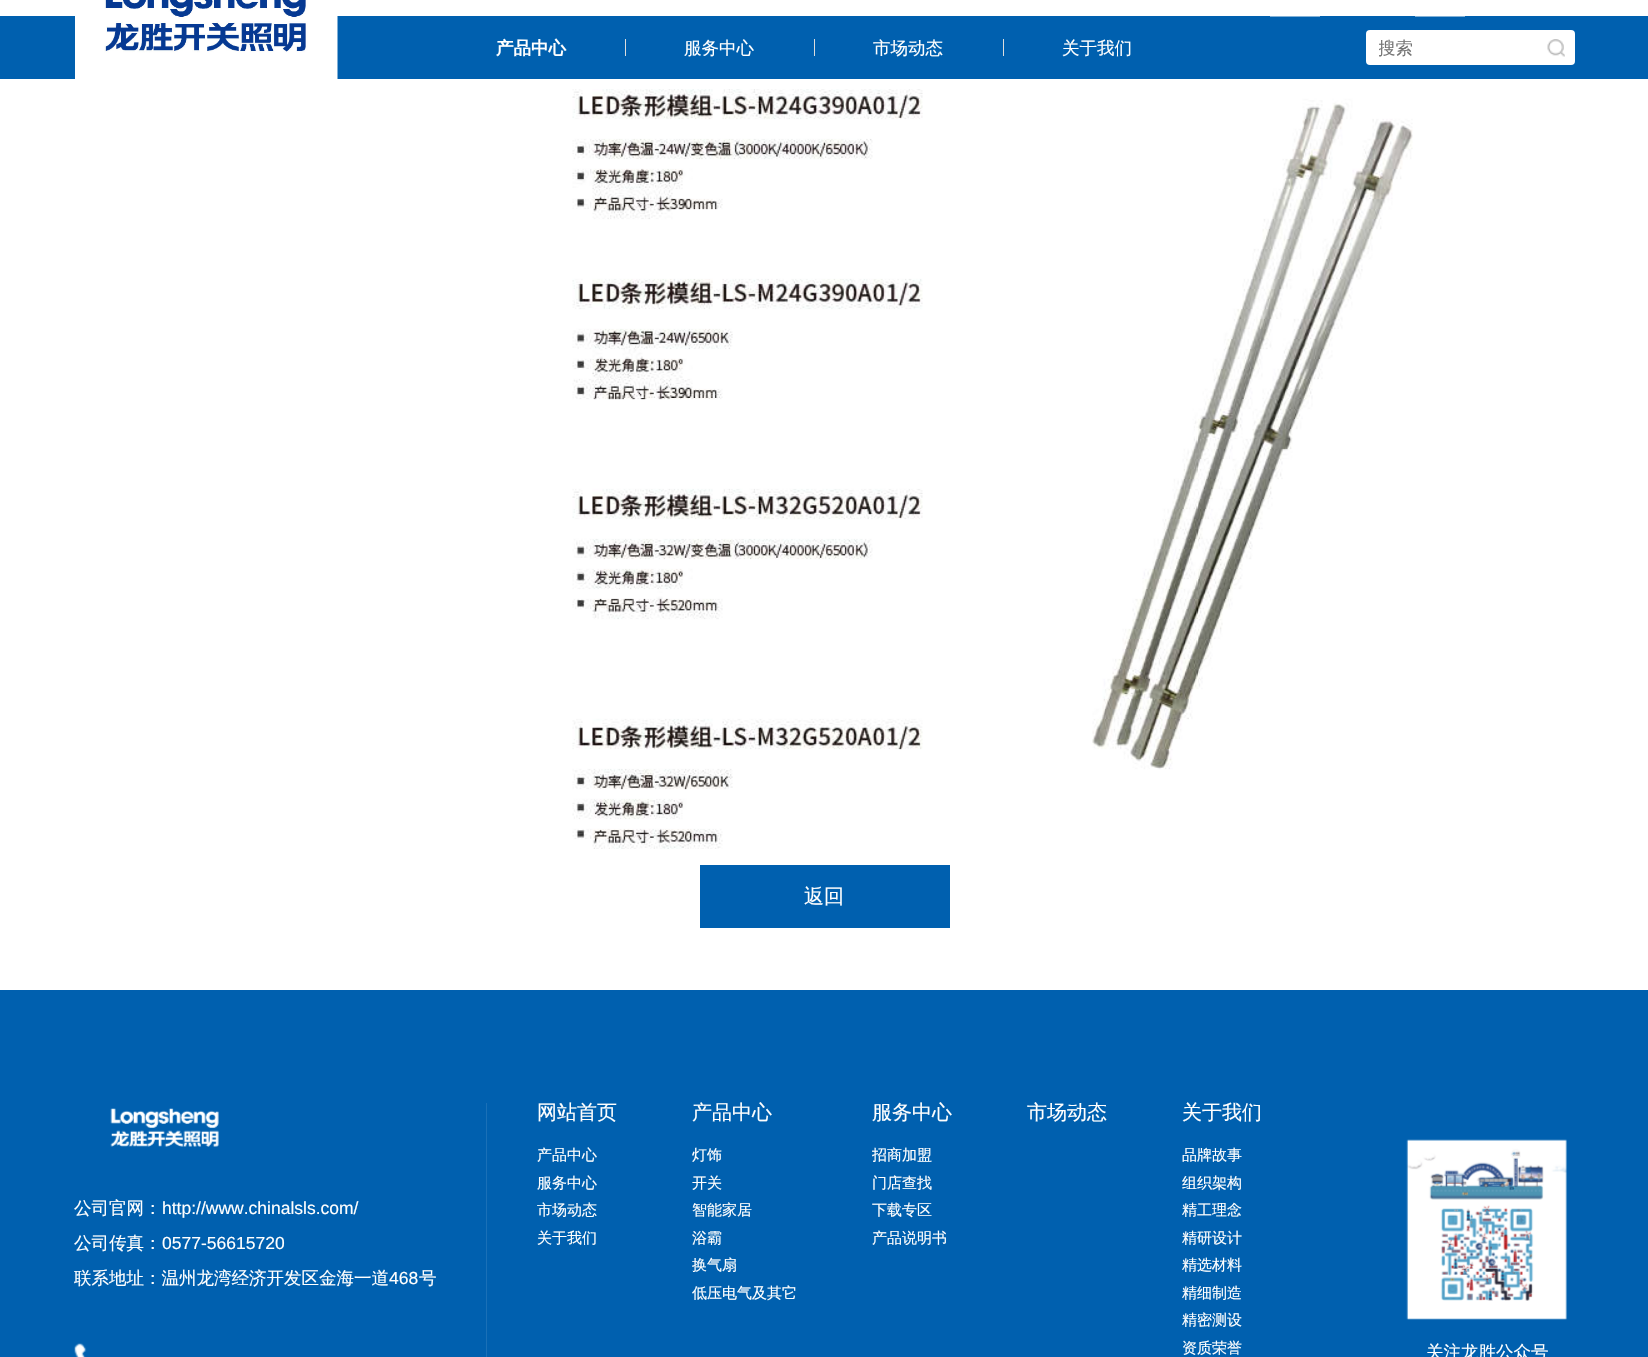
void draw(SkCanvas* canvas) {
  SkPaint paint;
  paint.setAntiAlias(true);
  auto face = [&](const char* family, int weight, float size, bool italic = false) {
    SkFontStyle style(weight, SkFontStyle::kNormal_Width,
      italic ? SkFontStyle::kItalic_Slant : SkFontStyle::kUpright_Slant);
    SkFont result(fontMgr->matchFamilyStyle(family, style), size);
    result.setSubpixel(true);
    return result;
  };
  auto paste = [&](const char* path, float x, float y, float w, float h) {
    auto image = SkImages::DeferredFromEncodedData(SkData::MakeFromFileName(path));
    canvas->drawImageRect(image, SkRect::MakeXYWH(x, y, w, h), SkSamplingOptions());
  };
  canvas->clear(0xffffffff);
  paint.setColor(0xff0060af);
  canvas->drawRect(SkRect::MakeXYWH(0, 16, 1648, 63), paint);
  paste("img/1.png", 75, 0, 263, 79);
  {
    const struct { float x, y, w, h; SkColor color; } items[] = {
      {1270, 16, 50, 1, 0xff80b0d7},
      {1415, 16, 50, 1, 0xff80b0d7},
      {625, 39, 1, 17, 0xffdddddd},
      {814, 39, 1, 17, 0xffdddddd},
      {1003, 39, 1, 17, 0xffdddddd},
    };
    for (auto [x, y, w, h, color] : items) {
      paint.setColor(color);
      canvas->drawRect(SkRect::MakeXYWH(x, y, w, h), paint);
    }
  }
  paint.setColor(0xffffffff);
  canvas->drawRoundRect(SkRect::MakeXYWH(1366, 30, 209, 35), 4, 4, paint);
  paste("img/2.png", 1547, 39, 18, 18);
  paste("img/3.png", 572, 89, 841, 760);
  {
    const struct { float x, y, w, h; SkColor color; } items[] = {
      {700, 865, 250, 63, 0xff0060af},
      {0, 990, 1648, 367, 0xff0060af},
      {486, 1103, 1, 254, 0xff1a70b7},
    };
    for (auto [x, y, w, h, color] : items) {
      paint.setColor(color);
      canvas->drawRect(SkRect::MakeXYWH(x, y, w, h), paint);
    }
  }
  paste("img/4.png", 110, 1108, 109, 39);
  paste("img/5.png", 74, 1343, 13, 14);
  paste("img/6.png", 1406, 1139, 161, 181);
  auto f0 = face("WenQuanYi Zen Hei", 700, 17.5f);
  paint.setColor(0xffffffff);
  canvas->drawString("产品中心", 496, 54, f0, paint);
  auto f1 = face("WenQuanYi Zen Hei", 500, 17.5f);
  {
    const struct { const char* s; float x, y; } items[] = {
      {"服务中心", 684, 54},
      {"市场动态", 873, 54},
      {"关于我们", 1062, 54},
    };
    for (auto [s, x, y] : items) {
      canvas->drawString(s, x, y, f1, paint);
    }
  }
  canvas->save();
  canvas->clipRect(SkRect::MakeXYWH(1379, 38, 137, 22));
  paint.setColor(0xff757575);
  canvas->drawString("搜索", 1378, 54, f1, paint);
  canvas->restore();
  auto f2 = face("WenQuanYi Zen Hei", 500, 20);
  paint.setColor(0xffffffff);
  canvas->drawString("返回", 804, 903, f2, paint);
  canvas->drawString("公司官网：", 74, 1214, f1, paint);
  auto f3 = face("Liberation Sans", 400, 17.5f);
  canvas->drawString("http://www.chinalsls.com/", 162, 1214, f3, paint);
  canvas->drawString("公司传真：", 74, 1249, f1, paint);
  canvas->drawString("0577-56615720", 162, 1249, f3, paint);
  canvas->drawString("联系地址：温州龙湾经济开发区金海一道", 74, 1284, f1, paint);
  canvas->drawString("468", 389, 1284, f3, paint);
  canvas->drawString("号", 419, 1284, f1, paint);
  canvas->drawString("网站首页", 537, 1119, f2, paint);
  auto f4 = face("WenQuanYi Zen Hei", 500, 15);
  {
    const struct { const char* s; float x, y; } items[] = {
      {"产品中心", 537, 1160},
      {"服务中心", 537, 1188},
      {"市场动态", 537, 1215},
      {"关于我们", 537, 1243},
    };
    for (auto [s, x, y] : items) {
      canvas->drawString(s, x, y, f4, paint);
    }
  }
  canvas->drawString("产品中心", 692, 1119, f2, paint);
  {
    const struct { const char* s; float x, y; } items[] = {
      {"灯饰", 692, 1160},
      {"开关", 692, 1188},
      {"智能家居", 692, 1215},
      {"浴霸", 692, 1243},
      {"换气扇", 692, 1270},
      {"低压电气及其它", 692, 1298},
    };
    for (auto [s, x, y] : items) {
      canvas->drawString(s, x, y, f4, paint);
    }
  }
  canvas->drawString("服务中心", 872, 1119, f2, paint);
  {
    const struct { const char* s; float x, y; } items[] = {
      {"招商加盟", 872, 1160},
      {"门店查找", 872, 1188},
      {"下载专区", 872, 1215},
      {"产品说明书", 872, 1243},
    };
    for (auto [s, x, y] : items) {
      canvas->drawString(s, x, y, f4, paint);
    }
  }
  canvas->drawString("市场动态", 1027, 1119, f2, paint);
  canvas->drawString("关于我们", 1182, 1119, f2, paint);
  {
    const struct { const char* s; float x, y; } items[] = {
      {"品牌故事", 1182, 1160},
      {"组织架构", 1182, 1188},
      {"精工理念", 1182, 1215},
      {"精研设计", 1182, 1243},
      {"精选材料", 1182, 1270},
      {"精细制造", 1182, 1298},
      {"精密测设", 1182, 1325},
      {"资质荣誉", 1182, 1353},
    };
    for (auto [s, x, y] : items) {
      canvas->drawString(s, x, y, f4, paint);
    }
  }
  canvas->drawString("关注龙胜公众号", 1426, 1358, f1, paint);
}
